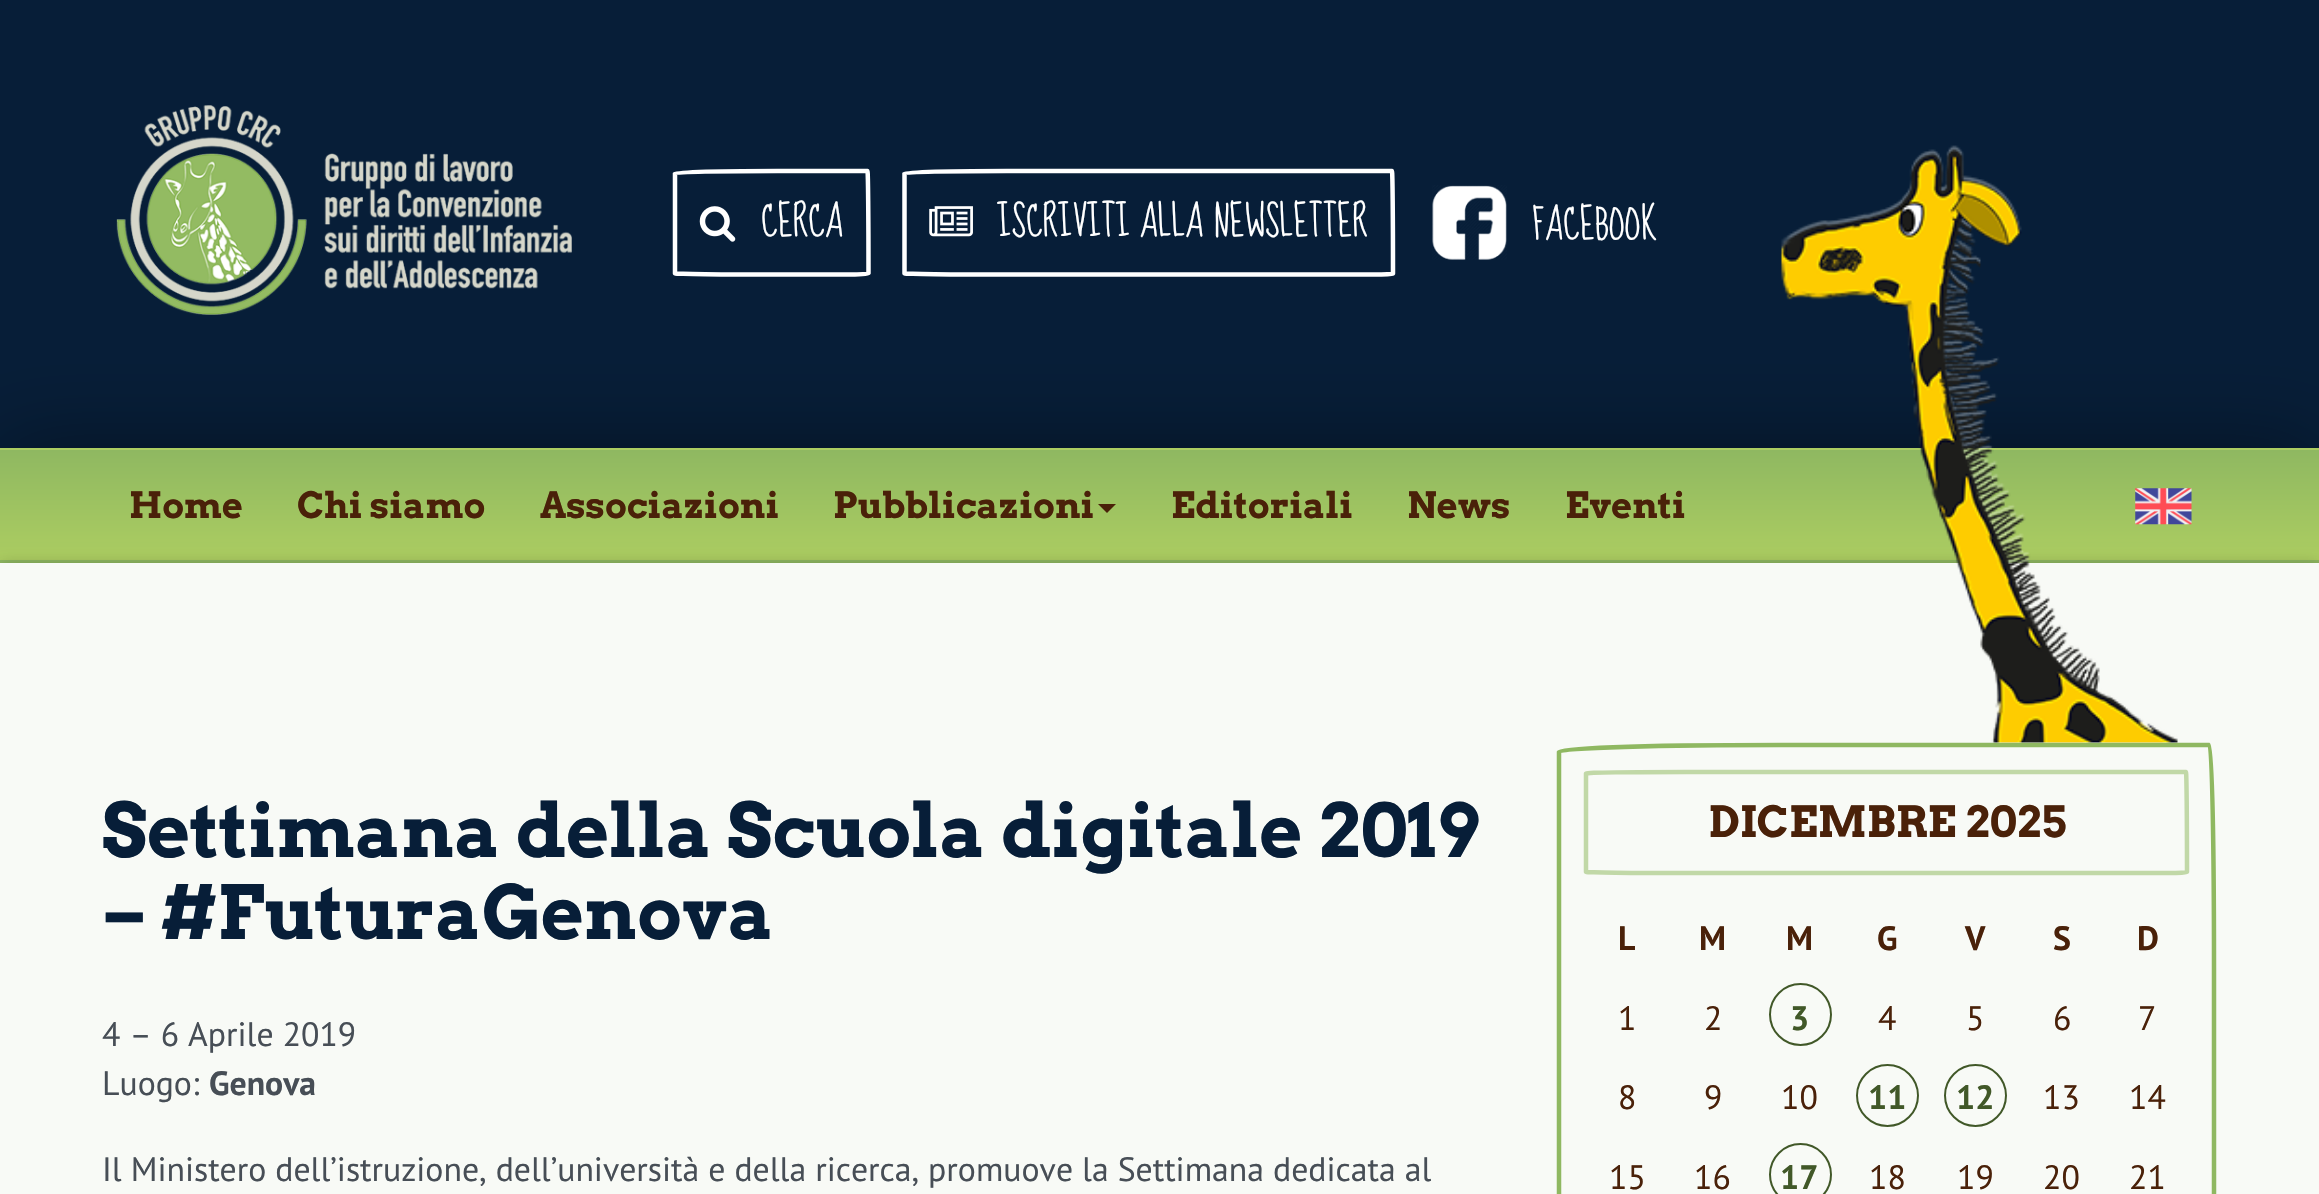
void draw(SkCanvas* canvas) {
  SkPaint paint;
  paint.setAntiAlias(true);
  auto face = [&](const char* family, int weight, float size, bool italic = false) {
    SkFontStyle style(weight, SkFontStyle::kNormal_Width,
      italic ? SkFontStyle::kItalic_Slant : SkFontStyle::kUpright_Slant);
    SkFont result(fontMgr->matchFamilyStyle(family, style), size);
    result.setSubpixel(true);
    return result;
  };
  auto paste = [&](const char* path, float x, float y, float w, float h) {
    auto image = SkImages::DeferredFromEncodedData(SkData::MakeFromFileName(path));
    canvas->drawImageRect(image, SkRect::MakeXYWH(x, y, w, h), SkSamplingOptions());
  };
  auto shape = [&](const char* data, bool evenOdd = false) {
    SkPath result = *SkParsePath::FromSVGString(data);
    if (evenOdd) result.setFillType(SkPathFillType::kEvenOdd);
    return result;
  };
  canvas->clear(0xff071e38);
  paste("img/1.png", 116, 105, 456, 210);
  paint.setStroke(true);
  paint.setStrokeWidth(4.5f);
  paint.setColor(0xffffffff);
  canvas->drawPath(shape("M777.5 171H867.5C868 171 868.5 217 868.5 273.5C868.5 274 860 274.5 850 274.5H777.5C721 274.5 675 274 675 273.5V173C675 172 721 171 777.5 171Z"), paint);
  paste("img/2.png", 699, 206, 37, 36);
  canvas->drawPath(shape("M1007 171H1392C1392.5 171 1393 217 1393 273.5C1393 274 1384.5 274.5 1374 274.5H1007C950.5 274.5 904.5 274 904.5 273.5V173C904.5 172 950.5 171 1007 171Z"), paint);
  paste("img/3.png", 929, 206, 44, 31);
  paste("img/4.png", 1432, 185, 75, 75);
  paint.setStroke(false);
  paint.setColor(0x66000000);
  paint.setMaskFilter(SkMaskFilter::MakeBlur(kNormal_SkBlurStyle, 45));
  canvas->drawRect(SkRect::MakeXYWH(0, 448, 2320, 115), paint);
  paint.setMaskFilter(nullptr);
  paint.setColor(0xff8fb861);
  canvas->drawRect(SkRect::MakeXYWH(0, 560, 2319, 3), paint);
  {
    const SkColor colors[] = {0xff8fb861, 0xffaccd61};
    const float stops[] = {0, 1};
    const SkPoint ends[] = {{1160, 340}, {1160, 450}};
    paint.setShader(SkGradientShader::MakeLinear(ends, colors, stops, 2, SkTileMode::kClamp));
    paint.setAlpha(255);
  }
  canvas->drawRect(SkRect::MakeXYWH(0, 448, 2319, 2), paint);
  {
    const SkColor colors[] = {0xff8fb861, 0xffaccd61};
    const float stops[] = {0, 1};
    const SkPoint ends[] = {{1160, 450}, {1160, 560}};
    paint.setShader(SkGradientShader::MakeLinear(ends, colors, stops, 2, SkTileMode::kClamp));
    paint.setAlpha(255);
  }
  canvas->drawRect(SkRect::MakeXYWH(0, 450, 2319, 110), paint);
  paint.setShader(nullptr);
  paint.setColor(0xff4a2109);
  canvas->drawPath(shape("M1098 504H1116L1107 513Z"), paint);
  paint.setColor(0x33000000);
  paint.setMaskFilter(SkMaskFilter::MakeBlur(kNormal_SkBlurStyle, 7));
  canvas->drawRect(SkRect::MakeXYWH(0, 563, 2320, 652), paint);
  paint.setMaskFilter(nullptr);
  paint.setColor(0xfff8faf6);
  canvas->drawRect(SkRect::MakeXYWH(0, 563, 2319, 631), paint);
  paste("img/6.png", 1781, 145, 397, 598);
  paste("img/5.png", 2135, 488, 57, 37);
  paint.setStroke(true);
  paint.setColor(0xff8fb861);
  canvas->drawPath(shape("M1782 745H2209.5C2212 745 2214 844.5 2214 967.5V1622C2214 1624.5 2195 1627 2171 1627H1782C1659 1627 1559 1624.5 1559 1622V751.5C1559 748 1659 745 1782 745Z"), paint);
  paint.setColor(0xffc1d8a7);
  canvas->drawPath(shape("M1686.5 772H2186C2186.5 772 2187 816.5 2187 872C2187 872.5 2179 873 2168.5 873H1686.5C1631 873 1586 872.5 1586 872V773.5C1586 772.5 1631 772 1686.5 772Z"), paint);
  paint.setStrokeWidth(2);
  paint.setColor(0xff415828);
  canvas->drawCircle(1800.5f, 1014.5f, 30.5f, paint);
  canvas->drawCircle(1887.5f, 1095.5f, 30.5f, paint);
  canvas->drawCircle(1975.5f, 1095.5f, 30.5f, paint);
  canvas->drawCircle(1800.5f, 1174.5f, 30.5f, paint);
  auto f0 = face("Sue Ellen Francisco", 400, 38.25f);
  paint.setStroke(false);
  paint.setColor(0xffffffff);
  {
    const struct { const char* s; float x, y; } items[] = {
      {"CERCA", 761, 236},
      {"ISCRIVITI ALLA NEWSLETTER", 997, 236},
      {"FACEBOOK", 1532, 239},
    };
    for (auto [s, x, y] : items) {
      canvas->drawString(s, x, y, f0, paint);
    }
  }
  auto f1 = face("Arvo", 700, 36);
  paint.setColor(0xff4a2109);
  {
    const struct { const char* s; float x, y; } items[] = {
      {"Home", 129, 518},
      {"Chi siamo", 297, 518},
      {"Associazioni", 540, 518},
      {"Pubblicazioni", 833, 518},
      {"Editoriali", 1171, 518},
      {"News", 1407, 518},
      {"Eventi", 1565, 518},
    };
    for (auto [s, x, y] : items) {
      canvas->drawString(s, x, y, f1, paint);
    }
  }
  auto f2 = face("Arvo", 700, 74.25f);
  paint.setColor(0xff071e38);
  canvas->drawString("Settimana della Scuola digitale 2019", 102, 857, f2, paint);
  canvas->drawString("– #FuturaGenova", 102, 939, f2, paint);
  auto f3 = face("PT Sans", 400, 33.75f);
  paint.setColor(0xff474e56);
  canvas->drawString("4 – 6 Aprile 2019", 102, 1046, f3, paint);
  canvas->drawString("Luogo:", 102, 1095, f3, paint);
  auto f4 = face("PT Sans", 700, 33.75f);
  canvas->drawString("Genova", 209, 1095, f4, paint);
  canvas->drawString("Il Ministero dell’istruzione, dell’università e della ricerca, promuove la Settimana dedicata al", 102, 1181, f3, paint);
  auto f5 = face("Arvo", 700, 42.75f);
  paint.setColor(0xff4a2109);
  canvas->drawString("DICEMBRE 2025", 1709, 837, f5, paint);
  {
    const struct { const char* s; float x, y; } items[] = {
      {"L", 1618, 950},
      {"M", 1699, 950},
      {"M", 1786, 950},
      {"G", 1877, 950},
      {"V", 1965, 950},
      {"S", 2053, 950},
      {"D", 2137, 950},
    };
    for (auto [s, x, y] : items) {
      canvas->drawString(s, x, y, f4, paint);
    }
  }
  canvas->drawString("1", 1618, 1030, f3, paint);
  canvas->drawString("2", 1704, 1030, f3, paint);
  paint.setColor(0xff415828);
  canvas->drawString("3", 1790, 1030, f4, paint);
  paint.setColor(0xff4a2109);
  {
    const struct { const char* s; float x, y; } items[] = {
      {"4", 1878, 1030},
      {"5", 1966, 1030},
      {"6", 2053, 1030},
      {"7", 2138, 1030},
      {"8", 1618, 1109},
      {"9", 1704, 1109},
      {"10", 1781, 1109},
    };
    for (auto [s, x, y] : items) {
      canvas->drawString(s, x, y, f3, paint);
    }
  }
  paint.setColor(0xff415828);
  canvas->drawString("11", 1868, 1109, f4, paint);
  canvas->drawString("12", 1956, 1109, f4, paint);
  paint.setColor(0xff4a2109);
  {
    const struct { const char* s; float x, y; } items[] = {
      {"13", 2043, 1109},
      {"14", 2129, 1109},
      {"15", 1609, 1189},
      {"16", 1694, 1189},
    };
    for (auto [s, x, y] : items) {
      canvas->drawString(s, x, y, f3, paint);
    }
  }
  paint.setColor(0xff415828);
  canvas->drawString("17", 1780, 1189, f4, paint);
  paint.setColor(0xff4a2109);
  {
    const struct { const char* s; float x, y; } items[] = {
      {"18", 1869, 1189},
      {"19", 1957, 1189},
      {"20", 2043, 1189},
      {"21", 2129, 1189},
    };
    for (auto [s, x, y] : items) {
      canvas->drawString(s, x, y, f3, paint);
    }
  }
}
